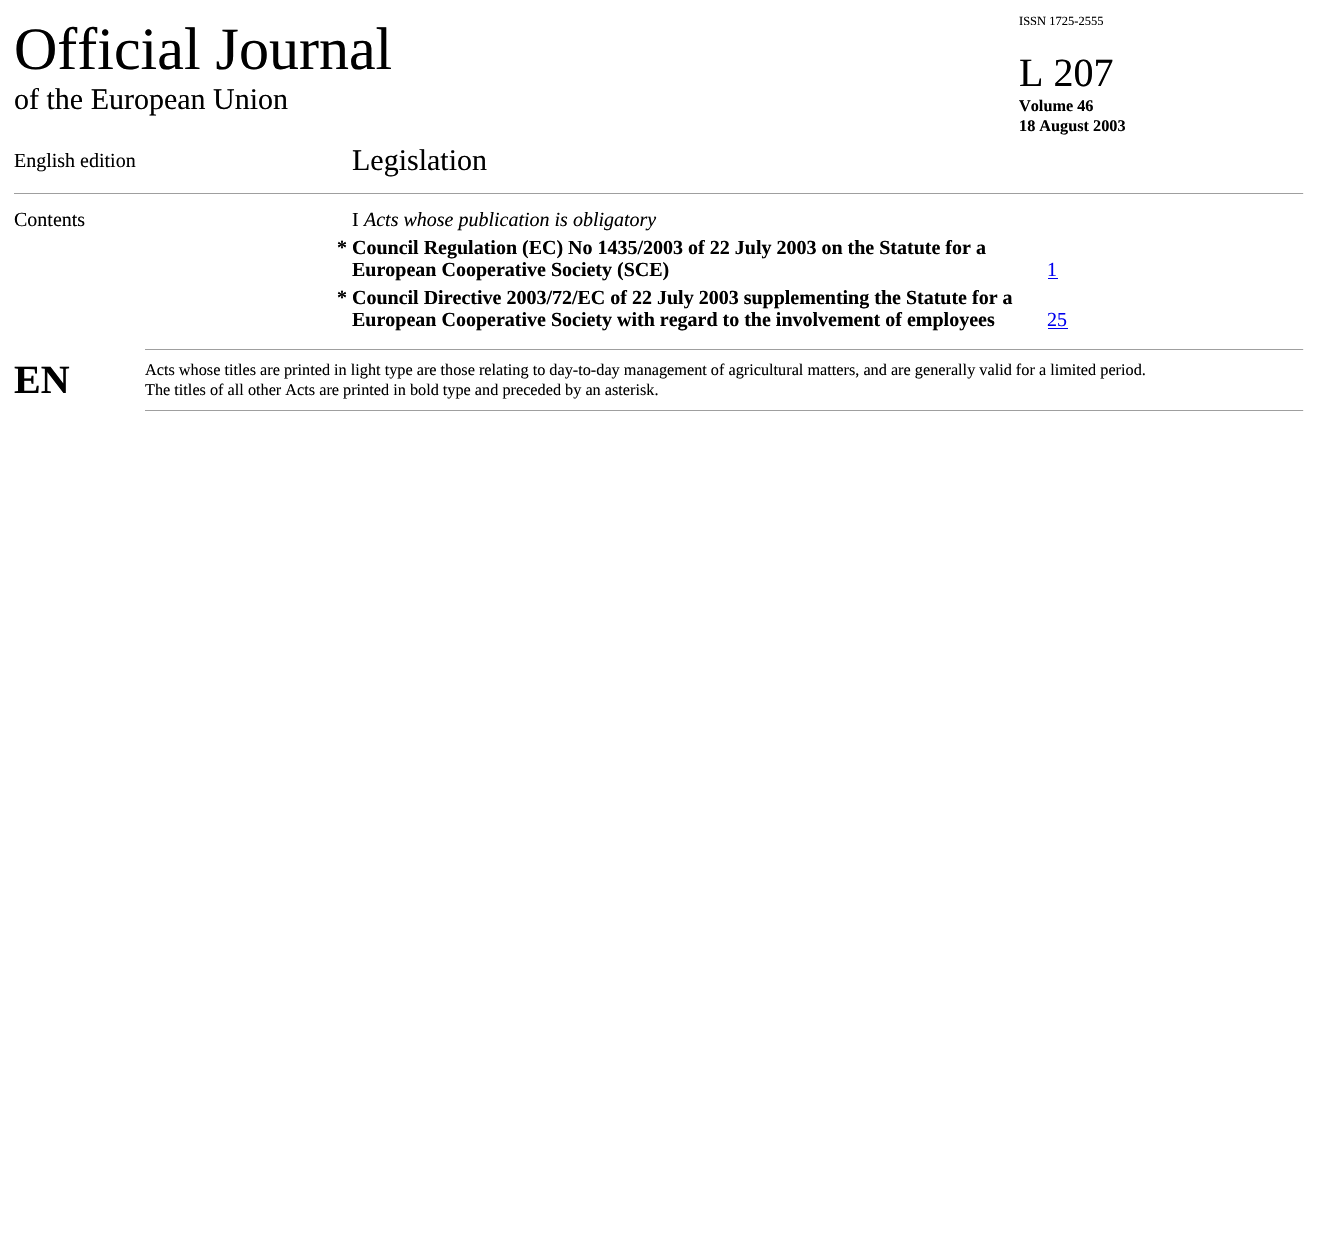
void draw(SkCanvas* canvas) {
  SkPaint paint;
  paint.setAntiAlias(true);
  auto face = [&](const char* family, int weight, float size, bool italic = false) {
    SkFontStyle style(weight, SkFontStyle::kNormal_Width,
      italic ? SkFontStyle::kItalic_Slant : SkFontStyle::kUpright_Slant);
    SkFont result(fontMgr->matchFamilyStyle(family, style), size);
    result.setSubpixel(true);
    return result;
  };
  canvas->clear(0xffffffff);
  {
    const struct { float x, y, w, h; SkColor color; } items[] = {
      {14, 193, 1290, 1, 0xff9f9f9f},
      {1303, 193, 1, 1, 0xffeeeeee},
      {1048, 278, 10, 1, 0xff0000ee},
      {1048, 328, 20, 1, 0xff0000ee},
      {145, 349, 1159, 1, 0xff9f9f9f},
      {1303, 349, 1, 1, 0xffeeeeee},
      {145, 410, 1159, 1, 0xff9f9f9f},
      {1303, 410, 1, 1, 0xffeeeeee},
    };
    for (auto [x, y, w, h, color] : items) {
      paint.setColor(color);
      canvas->drawRect(SkRect::MakeXYWH(x, y, w, h), paint);
    }
  }
  auto f0 = face("Liberation Serif", 400, 60);
  paint.setColor(0xff000000);
  canvas->drawString("Official Journal", 14, 69, f0, paint);
  auto f1 = face("Liberation Serif", 400, 30);
  canvas->drawString("of the European Union", 14, 109, f1, paint);
  auto f2 = face("Liberation Serif", 400, 12.5f);
  canvas->drawString("ISSN 1725-2555", 1019, 25, f2, paint);
  auto f3 = face("Liberation Serif", 400, 40);
  canvas->drawString("L 207", 1019, 86, f3, paint);
  auto f4 = face("Liberation Serif", 700, 16.25f);
  canvas->drawString("Volume 46", 1019, 111, f4, paint);
  canvas->drawString("18 August 2003", 1019, 131, f4, paint);
  auto f5 = face("Liberation Serif", 400, 20);
  canvas->drawString("English edition", 14, 167, f5, paint);
  canvas->drawString("Legislation", 352, 170, f1, paint);
  canvas->drawString("Contents", 14, 226, f5, paint);
  canvas->drawString("I", 352, 226, f5, paint);
  auto f6 = face("Liberation Serif", 400, 20, true);
  canvas->drawString("Acts whose publication is obligatory", 364, 226, f6, paint);
  auto f7 = face("Liberation Serif", 700, 20);
  canvas->drawString("* Council Regulation (EC) No 1435/2003 of 22 July 2003 on the Statute for a", 337, 254, f7, paint);
  canvas->drawString("European Cooperative Society (SCE)", 352, 276, f7, paint);
  paint.setColor(0xff0000ee);
  canvas->drawString("1", 1047, 276, f5, paint);
  paint.setColor(0xff000000);
  canvas->drawString("* Council Directive 2003/72/EC of 22 July 2003 supplementing the Statute for a", 337, 304, f7, paint);
  canvas->drawString("European Cooperative Society with regard to the involvement of employees", 352, 326, f7, paint);
  paint.setColor(0xff0000ee);
  canvas->drawString("25", 1047, 326, f5, paint);
  auto f8 = face("Liberation Serif", 700, 40);
  paint.setColor(0xff000000);
  canvas->drawString("EN", 14, 393, f8, paint);
  auto f9 = face("Liberation Serif", 400, 16.25f);
  canvas->drawString("Acts whose titles are printed in light type are those relating to day-to-day management of agricultural matters, and are generally valid for a limited period.", 145, 375, f9, paint);
  canvas->drawString("The titles of all other Acts are printed in bold type and preceded by an asterisk.", 145, 395, f9, paint);
}
